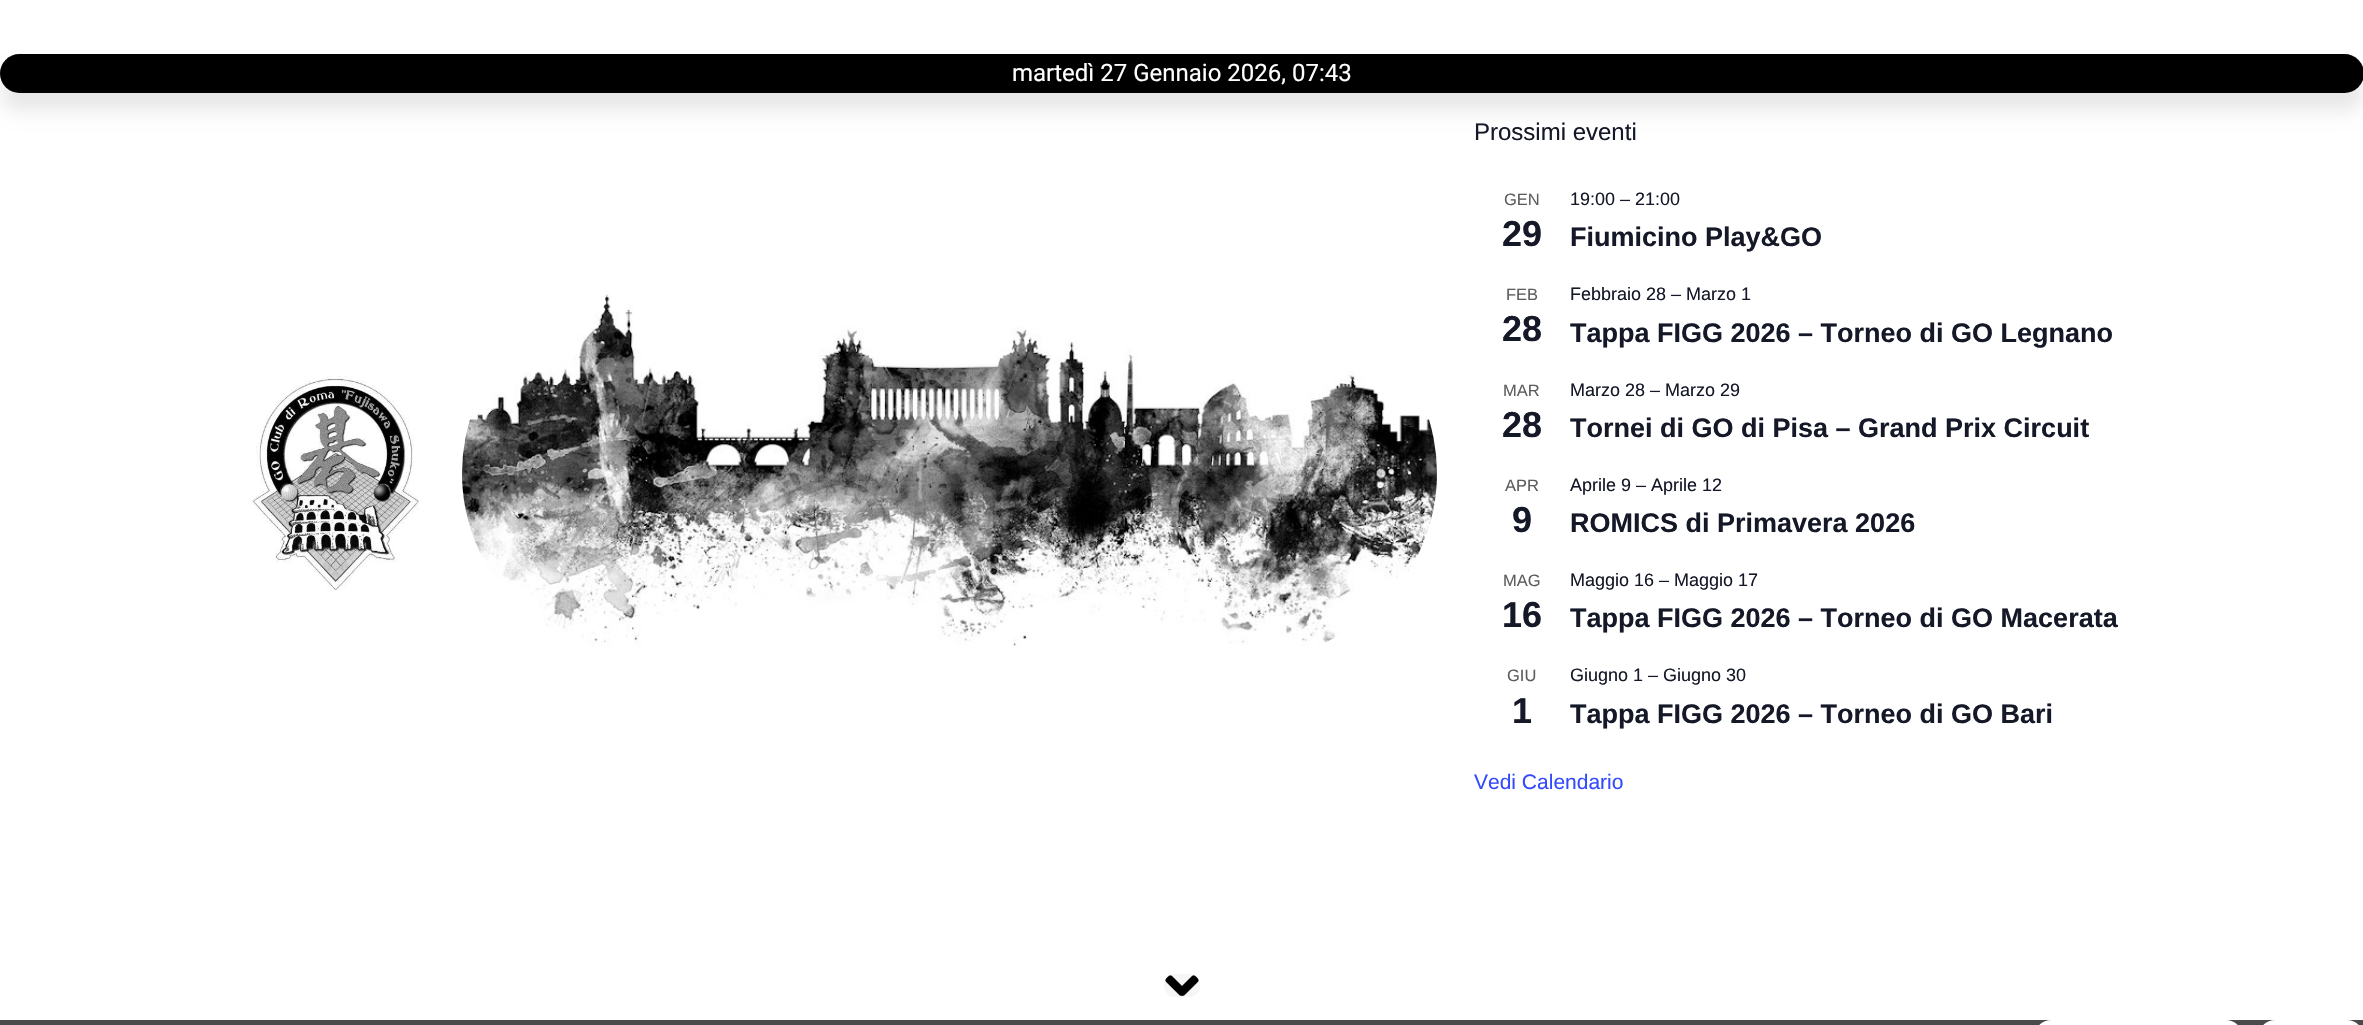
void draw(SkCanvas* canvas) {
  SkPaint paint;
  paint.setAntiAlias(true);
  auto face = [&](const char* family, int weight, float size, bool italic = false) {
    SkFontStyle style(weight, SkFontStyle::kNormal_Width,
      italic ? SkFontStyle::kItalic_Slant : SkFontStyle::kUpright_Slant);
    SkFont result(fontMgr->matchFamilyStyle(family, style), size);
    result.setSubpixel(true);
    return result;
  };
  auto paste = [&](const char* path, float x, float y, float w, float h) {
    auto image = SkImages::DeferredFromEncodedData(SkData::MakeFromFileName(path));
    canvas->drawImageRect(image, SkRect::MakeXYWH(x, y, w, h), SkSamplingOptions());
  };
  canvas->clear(0xffffffff);
  paint.setColor(0x17000000);
  paint.setMaskFilter(SkMaskFilter::MakeBlur(kNormal_SkBlurStyle, 9));
  canvas->drawRoundRect(SkRect::MakeXYWH(0, 72, 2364, 39), 19.5f, 19.5f, paint);
  paint.setMaskFilter(nullptr);
  paint.setColor(0xff000000);
  canvas->drawRoundRect(SkRect::MakeXYWH(0, 54, 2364, 39), 19.5f, 19.5f, paint);
  paste("img/1.png", 251, 376, 168, 215);
  paste("img/2.png", 462, 294, 975, 352);
  paste("img/3.png", 1164, 974, 36, 23);
  paint.setColor(0xff4a4a4a);
  canvas->drawRect(SkRect::MakeXYWH(0, 1020, 2363, 5), paint);
  paint.setColor(0xffffffff);
  canvas->drawRoundRect(SkRect::MakeXYWH(2034, 1020, 209, 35), 30, 30, paint);
  canvas->drawRoundRect(SkRect::MakeXYWH(2258, 1020, 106, 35), 30, 30, paint);
  auto f0 = face("Roboto", 400, 24);
  canvas->drawString("martedì 27 Gennaio 2026, 07:43", 1012, 81, f0, paint);
  auto f1 = face("Liberation Sans", 400, 24);
  paint.setColor(0xff141827);
  canvas->drawString("Prossimi eventi", 1474, 140, f1, paint);
  auto f2 = face("Liberation Sans", 400, 16.5f);
  paint.setColor(0xff5d5d5d);
  canvas->drawString("GEN", 1504, 205, f2, paint);
  auto f3 = face("Liberation Sans", 700, 36);
  paint.setColor(0xff141827);
  canvas->drawString("29", 1502, 246, f3, paint);
  auto f4 = face("Liberation Sans", 400, 18);
  canvas->drawString("19:00 – 21:00", 1570, 205, f4, paint);
  auto f5 = face("Liberation Sans", 700, 27);
  canvas->drawString("Fiumicino Play&GO", 1570, 246, f5, paint);
  paint.setColor(0xff5d5d5d);
  canvas->drawString("FEB", 1506, 300, f2, paint);
  paint.setColor(0xff141827);
  canvas->drawString("28", 1502, 341, f3, paint);
  canvas->drawString("Febbraio 28 – Marzo 1", 1570, 300, f4, paint);
  canvas->drawString("Tappa FIGG 2026 – Torneo di GO Legnano", 1570, 342, f5, paint);
  paint.setColor(0xff5d5d5d);
  canvas->drawString("MAR", 1503, 396, f2, paint);
  paint.setColor(0xff141827);
  canvas->drawString("28", 1502, 437, f3, paint);
  canvas->drawString("Marzo 28 – Marzo 29", 1570, 396, f4, paint);
  canvas->drawString("Tornei di GO di Pisa – Grand Prix Circuit", 1570, 437, f5, paint);
  paint.setColor(0xff5d5d5d);
  canvas->drawString("APR", 1505, 491, f2, paint);
  paint.setColor(0xff141827);
  canvas->drawString("9", 1512, 532, f3, paint);
  canvas->drawString("Aprile 9 – Aprile 12", 1570, 491, f4, paint);
  canvas->drawString("ROMICS di Primavera 2026", 1570, 532, f5, paint);
  paint.setColor(0xff5d5d5d);
  canvas->drawString("MAG", 1503, 586, f2, paint);
  paint.setColor(0xff141827);
  canvas->drawString("16", 1502, 627, f3, paint);
  canvas->drawString("Maggio 16 – Maggio 17", 1570, 586, f4, paint);
  canvas->drawString("Tappa FIGG 2026 – Torneo di GO Macerata", 1570, 627, f5, paint);
  paint.setColor(0xff5d5d5d);
  canvas->drawString("GIU", 1507, 681, f2, paint);
  paint.setColor(0xff141827);
  canvas->drawString("1", 1512, 723, f3, paint);
  canvas->drawString("Giugno 1 – Giugno 30", 1570, 681, f4, paint);
  canvas->drawString("Tappa FIGG 2026 – Torneo di GO Bari", 1570, 723, f5, paint);
  auto f6 = face("Liberation Sans", 400, 21);
  paint.setColor(0xff334aff);
  canvas->drawString("Vedi Calendario", 1474, 789, f6, paint);
}
